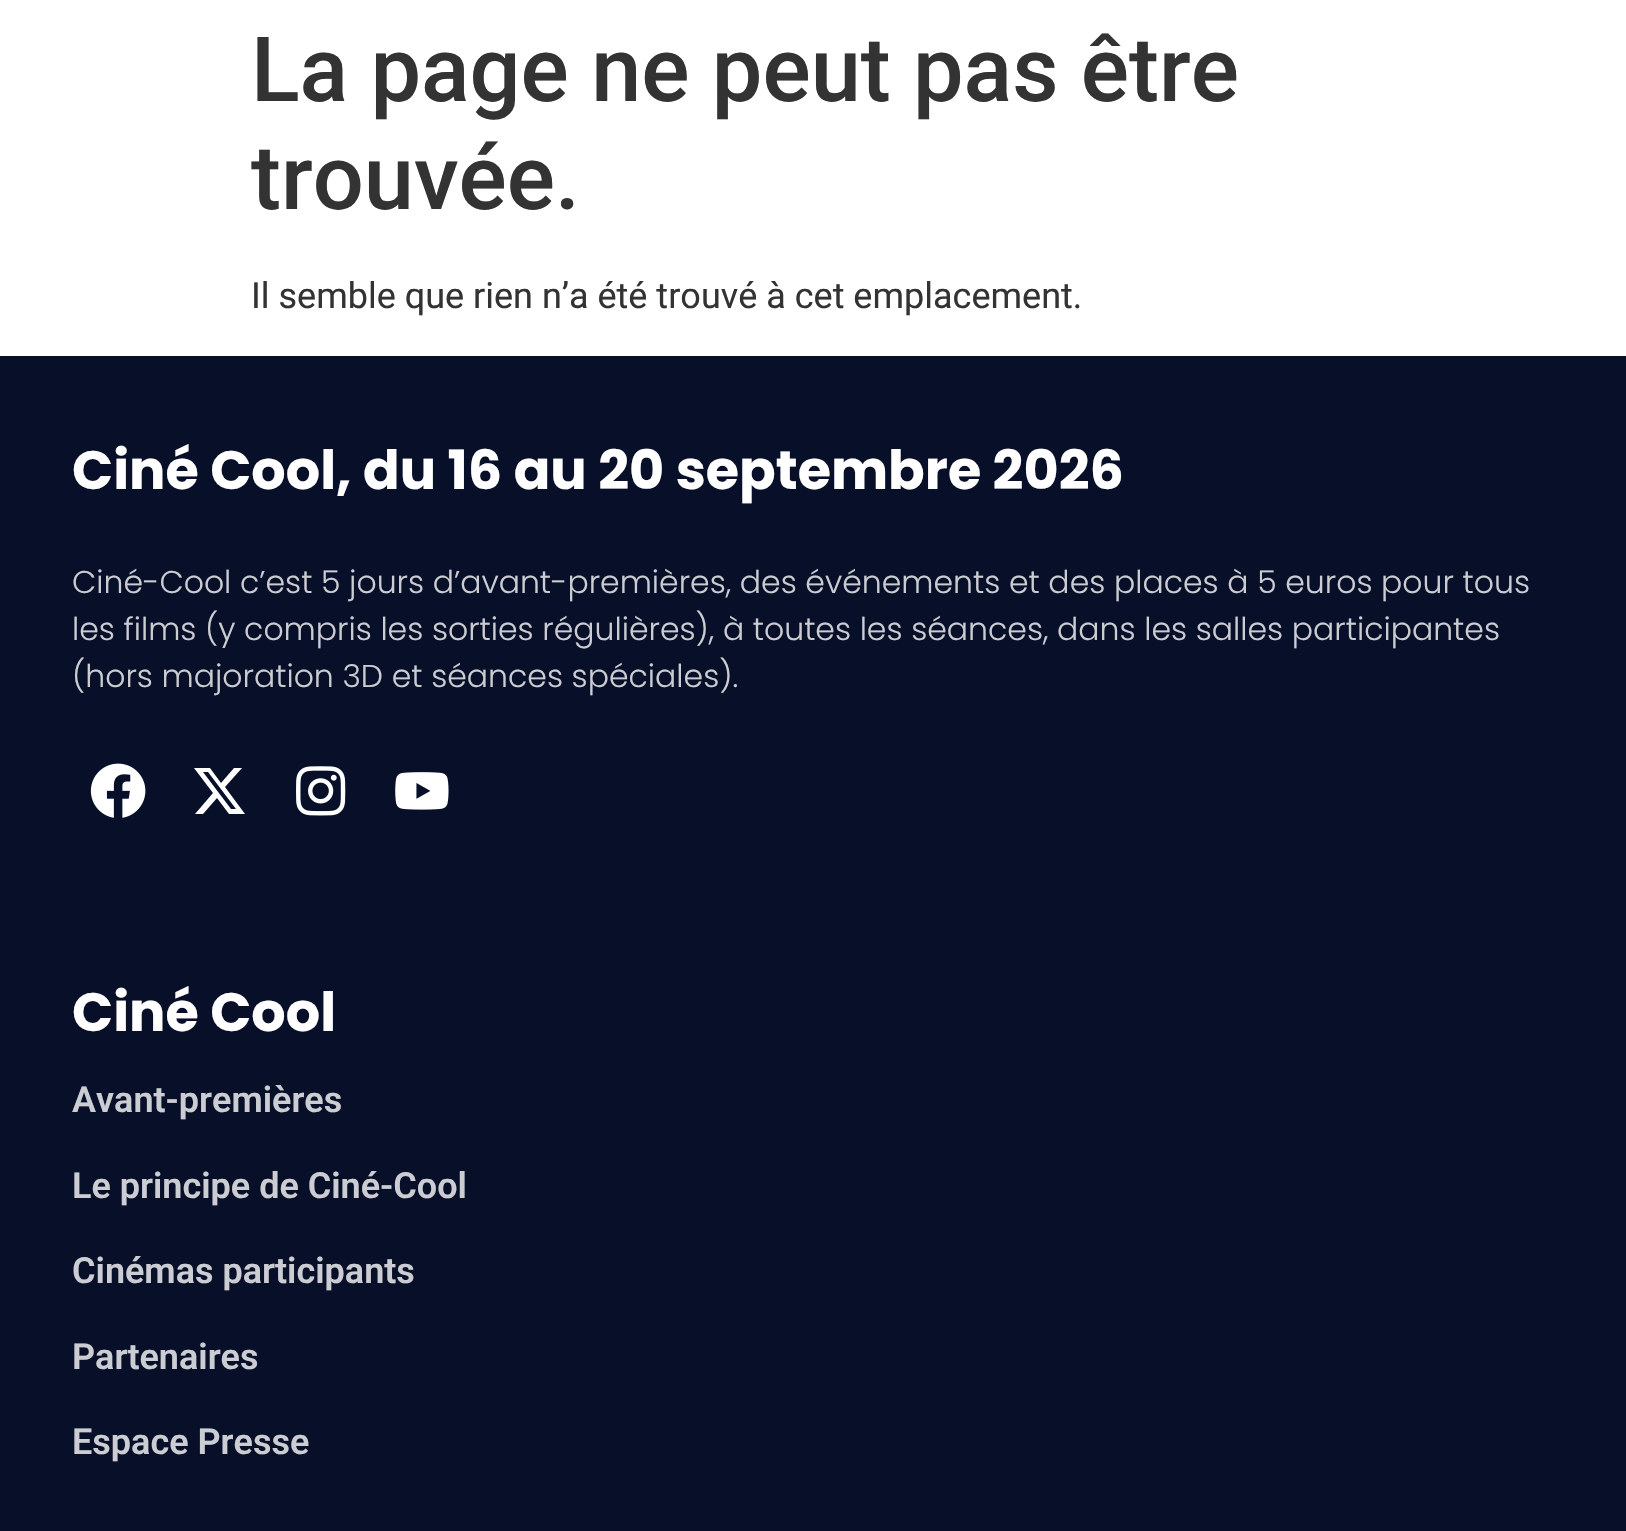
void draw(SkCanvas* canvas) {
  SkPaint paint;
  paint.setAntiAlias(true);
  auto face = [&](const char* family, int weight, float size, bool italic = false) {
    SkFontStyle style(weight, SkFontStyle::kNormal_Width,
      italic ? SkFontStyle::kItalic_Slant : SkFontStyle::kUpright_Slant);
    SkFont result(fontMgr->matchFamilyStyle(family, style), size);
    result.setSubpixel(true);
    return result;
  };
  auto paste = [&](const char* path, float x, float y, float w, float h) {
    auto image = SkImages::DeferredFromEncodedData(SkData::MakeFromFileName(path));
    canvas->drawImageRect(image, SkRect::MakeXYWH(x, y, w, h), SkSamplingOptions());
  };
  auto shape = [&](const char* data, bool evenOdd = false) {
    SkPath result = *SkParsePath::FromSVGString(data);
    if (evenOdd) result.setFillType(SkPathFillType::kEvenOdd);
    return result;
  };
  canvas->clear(0xffffffff);
  paint.setColor(0xff080f29);
  canvas->drawRect(SkRect::MakeXYWH(0, 356, 1626, 1175), paint);
  paste("img/1.png", 90, 763, 56, 55);
  paint.setColor(0xffffffff);
  canvas->drawPath(shape("M234 768H242L225 787L245 814H229L217 798L203 814H195L213 793L194 768H210L221 783ZM231 809H236L208 772H203Z"), paint);
  paste("img/2.png", 296, 766, 50, 50);
  paste("img/3.png", 395, 772, 54, 38);
  auto f0 = face("Roboto", 500, 90);
  paint.setColor(0xff333333);
  canvas->drawString("La page ne peut pas être", 251, 101, f0, paint);
  canvas->drawString("trouvée.", 251, 209, f0, paint);
  auto f1 = face("Roboto", 400, 36);
  canvas->drawString("Il semble que rien n’a été trouvé à cet emplacement.", 251, 308, f1, paint);
  auto f2 = face("Poppins", 700, 54);
  paint.setColor(0xffffffff);
  canvas->drawString("Ciné Cool, du 16 au 20 septembre 2026", 72, 489, f2, paint);
  auto f3 = face("Poppins", 300, 31.5f);
  paint.setColor(0xffcccdd2);
  {
    const struct { const char* s; float x, y; } items[] = {
      {"Ciné-Cool c’est 5 jours d’avant-premières, des événements et des places à 5 euros pour tous", 72, 593},
      {"les films (y compris les sorties régulières), à toutes les séances, dans les salles participantes", 72, 640},
      {"(hors majoration 3D et séances spéciales).", 72, 687},
    };
    for (auto [s, x, y] : items) {
      canvas->drawString(s, x, y, f3, paint);
    }
  }
  paint.setColor(0xffffffff);
  canvas->drawString("Ciné Cool", 72, 1031, f2, paint);
  auto f4 = face("Roboto", 600, 36);
  paint.setColor(0xffcccdd2);
  {
    const struct { const char* s; float x, y; } items[] = {
      {"Avant-premières", 72, 1112},
      {"Le principe de Ciné-Cool", 72, 1198},
      {"Cinémas participants", 72, 1283},
      {"Partenaires", 72, 1369},
      {"Espace Presse", 72, 1454},
    };
    for (auto [s, x, y] : items) {
      canvas->drawString(s, x, y, f4, paint);
    }
  }
}
